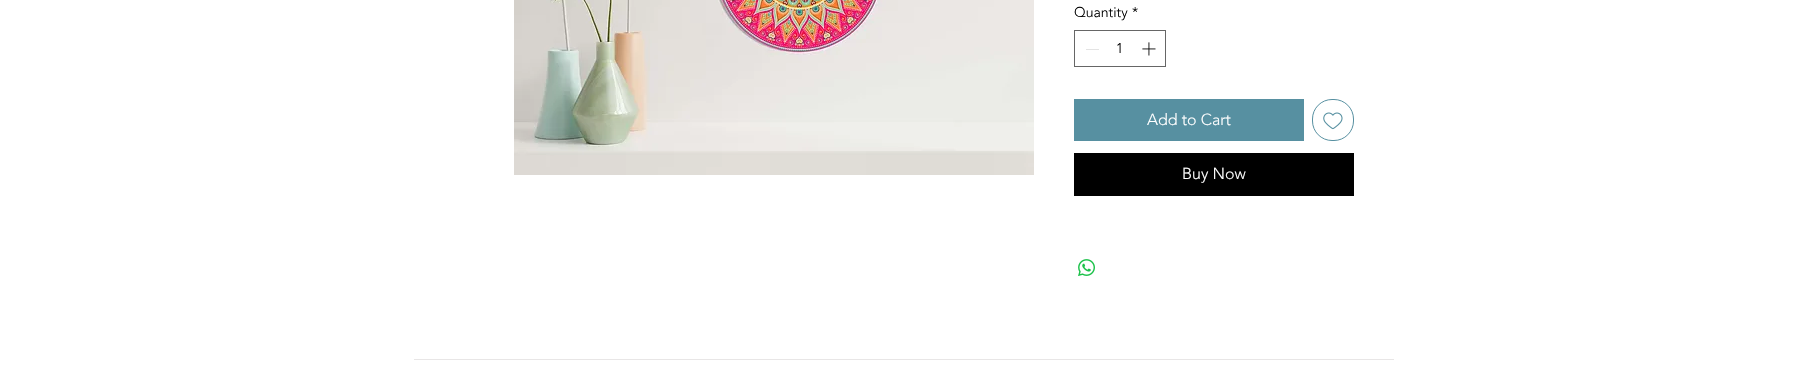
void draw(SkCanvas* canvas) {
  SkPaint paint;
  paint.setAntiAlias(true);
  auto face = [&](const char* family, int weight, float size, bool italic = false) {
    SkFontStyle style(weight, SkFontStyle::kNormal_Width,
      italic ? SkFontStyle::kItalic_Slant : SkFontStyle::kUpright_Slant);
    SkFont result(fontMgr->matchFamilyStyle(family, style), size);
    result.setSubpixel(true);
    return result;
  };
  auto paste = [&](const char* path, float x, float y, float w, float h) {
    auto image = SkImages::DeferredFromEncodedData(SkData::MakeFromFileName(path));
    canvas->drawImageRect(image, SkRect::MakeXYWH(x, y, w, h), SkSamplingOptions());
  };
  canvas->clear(0xffffffff);
  paste("img/1.png", 514, 0, 520, 175);
  paint.setStroke(true);
  paint.setStrokeWidth(1);
  paint.setColor(0xff666666);
  canvas->drawRect(SkRect::MakeXYWH(1074.5f, 30.5f, 91, 36), paint);
  paint.setStroke(false);
  paint.setColor(0xffe3e3e3);
  canvas->drawRect(SkRect::MakeXYWH(1086, 49, 13, 1), paint);
  paste("img/2.png", 1142, 42, 14, 14);
  paint.setColor(0xff5790a1);
  canvas->drawRect(SkRect::MakeXYWH(1074, 99, 230, 42), paint);
  paint.setStroke(true);
  canvas->drawRoundRect(SkRect::MakeXYWH(1312.5f, 99.5f, 41, 41), 19.5f, 19.5f, paint);
  paste("img/3.png", 1323, 112, 20, 18);
  paint.setStroke(false);
  paint.setColor(0xff000000);
  canvas->drawRect(SkRect::MakeXYWH(1074, 153, 280, 43), paint);
  paste("img/4.png", 1078, 259, 17, 17);
  paint.setColor(0xffe8e6e6);
  canvas->drawRect(SkRect::MakeXYWH(414, 359, 980, 1), paint);
  auto f0 = face("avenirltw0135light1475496", 300, 14);
  paint.setColor(0xff000000);
  {
    const struct { const char* s; float x, y; } items[] = {
      {"Quantity", 1074, 17},
      {"*", 1132, 17},
      {"1", 1116, 53},
    };
    for (auto [s, x, y] : items) {
      canvas->drawString(s, x, y, f0, paint);
    }
  }
  auto f1 = face("avenirltw0135light1475496", 300, 16);
  paint.setColor(0xffffffff);
  canvas->drawString("Add to Cart", 1147, 125, f1, paint);
  canvas->drawString("Buy Now", 1182, 179, f1, paint);
}
